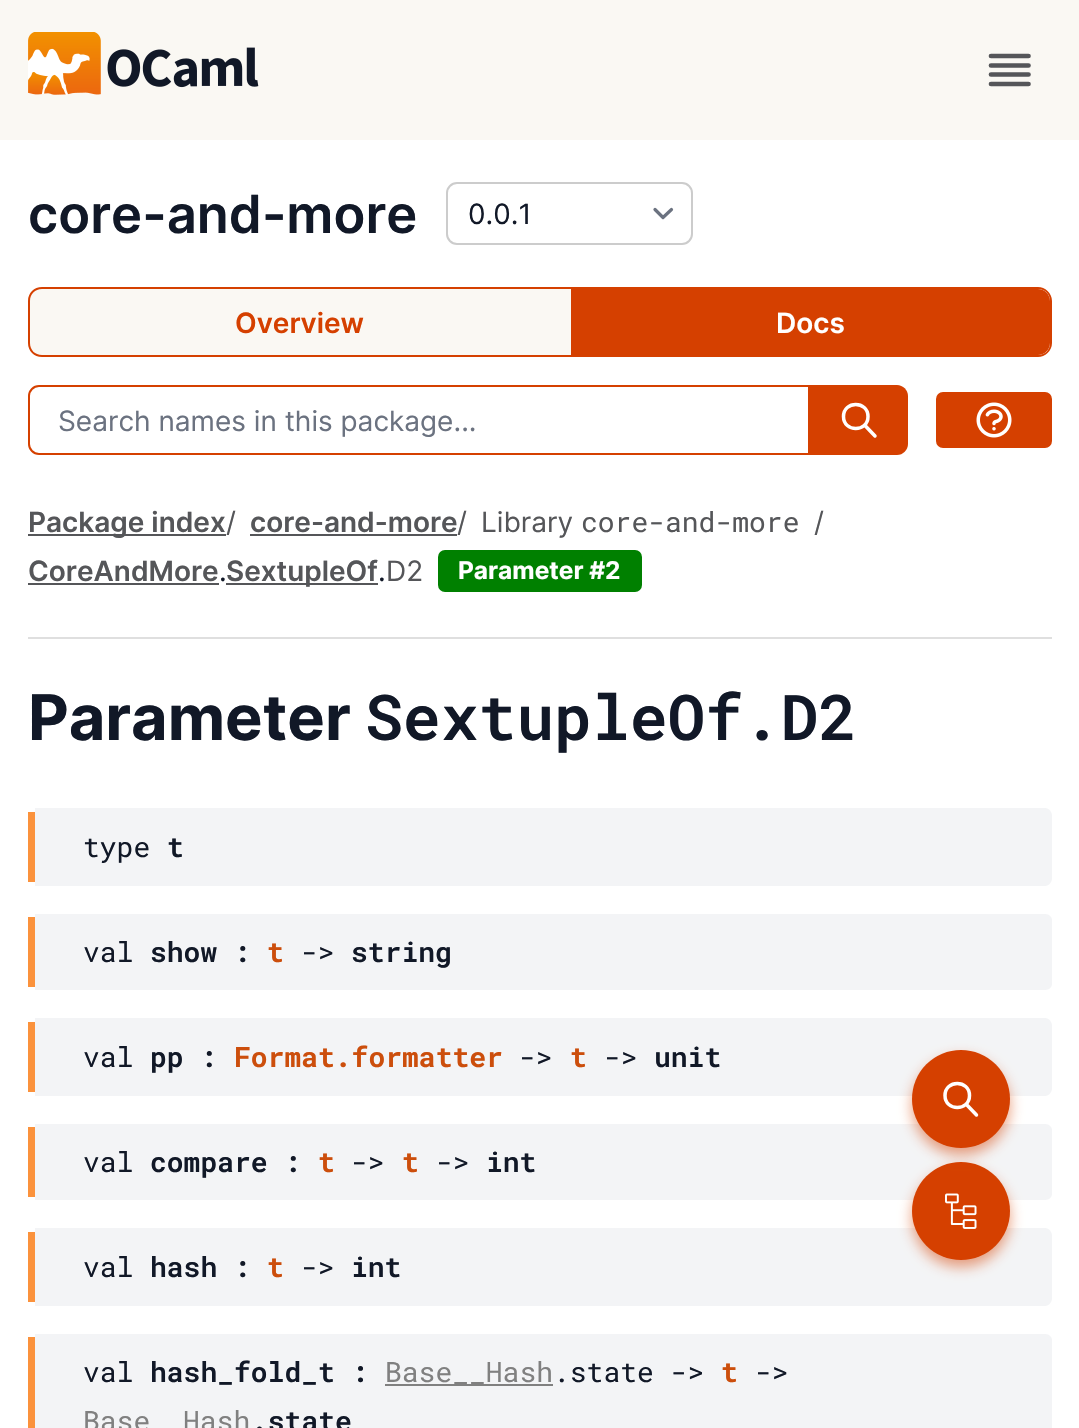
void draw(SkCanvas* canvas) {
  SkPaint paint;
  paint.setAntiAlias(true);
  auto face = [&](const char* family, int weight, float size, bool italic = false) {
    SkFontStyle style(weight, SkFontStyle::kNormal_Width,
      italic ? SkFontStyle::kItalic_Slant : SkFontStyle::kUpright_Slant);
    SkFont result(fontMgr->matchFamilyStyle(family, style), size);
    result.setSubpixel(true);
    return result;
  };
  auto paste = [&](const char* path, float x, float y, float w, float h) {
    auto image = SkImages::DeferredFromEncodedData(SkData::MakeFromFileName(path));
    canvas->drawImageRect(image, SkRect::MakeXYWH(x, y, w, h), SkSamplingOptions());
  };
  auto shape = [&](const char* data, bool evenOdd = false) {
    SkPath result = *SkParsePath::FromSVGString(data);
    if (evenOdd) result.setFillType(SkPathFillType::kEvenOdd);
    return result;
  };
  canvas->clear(0xfffaf8f3);
  paste("img/1.png", 28, 32, 231, 63);
  paint.setStroke(true);
  paint.setStrokeWidth(4.7f);
  paint.setStrokeCap(SkPaint::kRound_Cap);
  paint.setStrokeJoin(SkPaint::kRound_Join);
  paint.setColor(0xff555659);
  canvas->drawPath(shape("M991 56H1028.5M991 65.5H1028.5M991 74.5H1028.5M991 84H1028.5"), paint);
  paint.setStroke(false);
  paint.setColor(0xffffffff);
  canvas->drawRect(SkRect::MakeXYWH(0, 140, 1079, 1288), paint);
  paint.setStroke(true);
  paint.setStrokeWidth(3.2f);
  paint.setColor(0xff6b7280);
  canvas->drawPath(shape("M655 209.5L663 217.5L671.5 209.5"), paint);
  paint.setStrokeWidth(2);
  paint.setStrokeCap(SkPaint::kButt_Cap);
  paint.setStrokeJoin(SkPaint::kMiter_Join);
  paint.setColor(0xffcccccc);
  canvas->drawRoundRect(SkRect::MakeXYWH(447, 183, 245, 61), 10, 10, paint);
  paint.setStroke(false);
  paint.setColor(0xfffaf8f3);
  canvas->drawPath(shape("M42 289H571V355H42C35.5 355 30 349.5 30 343V301C30 294.5 35.5 289 42 289Z"), paint);
  paint.setColor(0xffd54000);
  canvas->drawPath(shape("M42 287H570V357H42C34 357 28 351 28 343V301C28 293 34 287 42 287ZM42 289H570V355H42C35 355 30 350 30 343V301C30 294 35 289 42 289Z", true), paint);
  canvas->drawPath(shape("M571 289H1038C1044.5 289 1050 294.5 1050 301V343C1050 349.5 1044.5 355 1038 355H571Z"), paint);
  canvas->drawPath(shape("M570 287H1038C1045 287 1052 293 1052 301V343C1052 351 1045 357 1038 357H570ZM570 289H1038C1045 289 1050 294 1050 301V343C1050 350 1045 355 1038 355H570Z", true), paint);
  paint.setStroke(true);
  canvas->drawPath(shape("M39 386H809V454H39C33.5 454 29 449.5 29 444V396C29 390.5 33.5 386 39 386Z"), paint);
  paint.setStroke(false);
  canvas->drawPath(shape("M810 385H897C903 385 908 390 908 396V444C908 450 903 455 897 455H810Z"), paint);
  paint.setStroke(true);
  paint.setStrokeWidth(3.5f);
  paint.setStrokeCap(SkPaint::kRound_Cap);
  paint.setStrokeJoin(SkPaint::kRound_Join);
  paint.setColor(0xffffffff);
  canvas->drawPath(shape("M875 436L864.5 425M868 416.5C868 432.5 843.5 432.5 843.5 416.5C843.5 400.5 868 400.5 868 416.5Z"), paint);
  paint.setStroke(false);
  paint.setColor(0xffd54000);
  canvas->drawRoundRect(SkRect::MakeXYWH(937, 393, 114, 54), 6, 6, paint);
  paint.setStroke(true);
  paint.setStrokeWidth(2);
  paint.setStrokeCap(SkPaint::kButt_Cap);
  paint.setStrokeJoin(SkPaint::kMiter_Join);
  canvas->drawRoundRect(SkRect::MakeXYWH(937, 393, 114, 54), 6, 6, paint);
  paste("img/2.png", 976, 402, 36, 36);
  paint.setStroke(false);
  {
    const struct { float x, y, w, h; SkColor color; } items[] = {
      {28, 637, 1024, 2, 0xffdfdfdf},
      {28, 534, 198, 2, 0xff555659},
      {250, 534, 207, 2, 0xff555659},
      {28, 583, 191, 2, 0xff555659},
      {226, 583, 152, 2, 0xff555659},
    };
    for (auto [x, y, w, h, color] : items) {
      paint.setColor(color);
      canvas->drawRect(SkRect::MakeXYWH(x, y, w, h), paint);
    }
  }
  paint.setColor(0xff008000);
  canvas->drawRoundRect(SkRect::MakeXYWH(438, 550, 204, 42), 7, 7, paint);
  paint.setColor(0xfff3f4f6);
  canvas->drawPath(shape("M35 808H1045C1049 808 1052 812 1052 816V878C1052 882 1049 886 1045 886H35Z"), paint);
  paint.setColor(0xfffb923c);
  canvas->drawRect(SkRect::MakeXYWH(28, 812, 7, 70), paint);
  paint.setColor(0xfff3f4f6);
  canvas->drawPath(shape("M35 914H1045C1049 914 1052 917 1052 920V984C1052 987 1049 990 1045 990H35Z"), paint);
  paint.setColor(0xfffb923c);
  canvas->drawRect(SkRect::MakeXYWH(28, 917, 7, 70), paint);
  paint.setColor(0xfff3f4f6);
  canvas->drawPath(shape("M35 1018H1045C1049 1018 1052 1022 1052 1026V1088C1052 1092 1049 1096 1045 1096H35Z"), paint);
  paint.setColor(0xfffb923c);
  canvas->drawRect(SkRect::MakeXYWH(28, 1022, 7, 70), paint);
  paint.setColor(0xfff3f4f6);
  canvas->drawPath(shape("M35 1124H1045C1049 1124 1052 1127 1052 1130V1194C1052 1197 1049 1200 1045 1200H35Z"), paint);
  paint.setColor(0xfffb923c);
  canvas->drawRect(SkRect::MakeXYWH(28, 1127, 7, 70), paint);
  paint.setColor(0xfff3f4f6);
  canvas->drawPath(shape("M35 1228H1045C1049 1228 1052 1232 1052 1236V1298C1052 1302 1049 1306 1045 1306H35Z"), paint);
  paint.setColor(0xfffb923c);
  canvas->drawRect(SkRect::MakeXYWH(28, 1232, 7, 70), paint);
  paint.setColor(0xfff3f4f6);
  canvas->drawPath(shape("M35 1334H1045C1049 1334 1052 1337 1052 1340V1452C1052 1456 1049 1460 1045 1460H35Z"), paint);
  paint.setColor(0xfffb923c);
  canvas->drawRect(SkRect::MakeXYWH(28, 1337, 7, 91), paint);
  paint.setColor(0xff808080);
  canvas->drawRect(SkRect::MakeXYWH(385, 1384, 168, 2), paint);
  paint.setColor(0x80d54000);
  paint.setMaskFilter(SkMaskFilter::MakeBlur(kNormal_SkBlurStyle, 7));
  canvas->drawRoundRect(SkRect::MakeXYWH(912, 1169, 98, 98), 49, 49, paint);
  paint.setMaskFilter(nullptr);
  paint.setColor(0xffd54000);
  canvas->drawCircle(961, 1211, 49, paint);
  paint.setColor(0x80d54000);
  paint.setMaskFilter(SkMaskFilter::MakeBlur(kNormal_SkBlurStyle, 7));
  canvas->drawRoundRect(SkRect::MakeXYWH(912, 1057, 98, 98), 49, 49, paint);
  paint.setMaskFilter(nullptr);
  paint.setColor(0xffd54000);
  canvas->drawCircle(961, 1099, 49, paint);
  paint.setStroke(true);
  paint.setStrokeWidth(3.5f);
  paint.setStrokeCap(SkPaint::kRound_Cap);
  paint.setStrokeJoin(SkPaint::kRound_Join);
  paint.setColor(0xffffffff);
  canvas->drawPath(shape("M976.5 1115L966 1104M969.5 1095.5C969.5 1111.5 945 1111.5 945 1095.5C945 1079.5 969.5 1079.5 969.5 1095.5Z"), paint);
  paste("img/3.png", 945, 1193, 32, 36);
  auto f0 = face("Inter", 600, 52.5f);
  paint.setStroke(false);
  paint.setColor(0xff111827);
  canvas->drawString("core-and-more", 28, 233, f0, paint);
  auto f1 = face("Inter", 400, 28);
  canvas->drawString("0.0.1", 468, 224, f1, paint);
  auto f2 = face("Inter", 600, 28);
  paint.setColor(0xffd54000);
  canvas->drawString("Overview", 235, 333, f2, paint);
  paint.setColor(0xffffffff);
  canvas->drawString("Docs", 776, 333, f2, paint);
  paint.setColor(0xff6b7280);
  canvas->drawString("Search names in this package...", 58, 431, f1, paint);
  paint.setColor(0xff555659);
  canvas->drawString("Package index", 28, 532, f2, paint);
  canvas->drawString("/", 226, 532, f1, paint);
  canvas->drawString("core-and-more", 250, 532, f2, paint);
  canvas->drawString("/", 457, 532, f1, paint);
  canvas->drawString("Library", 481, 532, f1, paint);
  auto f3 = face("Roboto Mono", 400, 28);
  canvas->drawString("core-and-more", 581, 532, f3, paint);
  canvas->drawString("/", 814, 532, f1, paint);
  canvas->drawString("CoreAndMore", 28, 581, f2, paint);
  paint.setColor(0xff111827);
  canvas->drawString(".", 219, 581, f1, paint);
  paint.setColor(0xff555659);
  canvas->drawString("SextupleOf", 226, 581, f2, paint);
  paint.setColor(0xff111827);
  canvas->drawString(".", 378, 581, f1, paint);
  paint.setColor(0xff555659);
  canvas->drawString("D2", 386, 581, f1, paint);
  auto f4 = face("Inter", 700, 24.5f);
  paint.setColor(0xffffffff);
  canvas->drawString("Parameter #2", 458, 579, f4, paint);
  auto f5 = face("Inter", 700, 63);
  paint.setColor(0xff111827);
  canvas->drawString("Parameter", 28, 740, f5, paint);
  auto f6 = face("Roboto Mono", 600, 63);
  canvas->drawString("SextupleOf.D2", 365, 740, f6, paint);
  canvas->drawString("type", 83, 857, f3, paint);
  auto f7 = face("Roboto Mono", 600, 28);
  canvas->drawString("t", 167, 857, f7, paint);
  canvas->drawString("val", 83, 962, f3, paint);
  canvas->drawString("show :", 150, 962, f7, paint);
  auto f8 = face("Roboto Mono", 700, 28);
  paint.setColor(0xffcc4e0c);
  canvas->drawString("t", 267, 962, f8, paint);
  paint.setColor(0xff111827);
  canvas->drawString("->", 301, 962, f3, paint);
  canvas->drawString("string", 351, 962, f7, paint);
  canvas->drawString("val", 83, 1067, f3, paint);
  canvas->drawString("pp :", 150, 1067, f7, paint);
  paint.setColor(0xffcc4e0c);
  canvas->drawString("Format.formatter", 234, 1067, f8, paint);
  paint.setColor(0xff111827);
  canvas->drawString("->", 519, 1067, f3, paint);
  paint.setColor(0xffcc4e0c);
  canvas->drawString("t", 570, 1067, f8, paint);
  paint.setColor(0xff111827);
  canvas->drawString("->", 604, 1067, f3, paint);
  canvas->drawString("unit", 654, 1067, f7, paint);
  canvas->drawString("val", 83, 1172, f3, paint);
  canvas->drawString("compare :", 150, 1172, f7, paint);
  paint.setColor(0xffcc4e0c);
  canvas->drawString("t", 318, 1172, f8, paint);
  paint.setColor(0xff111827);
  canvas->drawString("->", 351, 1172, f3, paint);
  paint.setColor(0xffcc4e0c);
  canvas->drawString("t", 402, 1172, f8, paint);
  paint.setColor(0xff111827);
  canvas->drawString("->", 436, 1172, f3, paint);
  canvas->drawString("int", 486, 1172, f7, paint);
  canvas->drawString("val", 83, 1277, f3, paint);
  canvas->drawString("hash :", 150, 1277, f7, paint);
  paint.setColor(0xffcc4e0c);
  canvas->drawString("t", 267, 1277, f8, paint);
  paint.setColor(0xff111827);
  canvas->drawString("->", 301, 1277, f3, paint);
  canvas->drawString("int", 351, 1277, f7, paint);
  canvas->drawString("val", 83, 1382, f3, paint);
  canvas->drawString("hash_fold_t :", 150, 1382, f7, paint);
  paint.setColor(0xff808080);
  canvas->drawString("Base__Hash", 385, 1382, f3, paint);
  paint.setColor(0xff111827);
  canvas->drawString(".state ->", 553, 1382, f3, paint);
  paint.setColor(0xffcc4e0c);
  canvas->drawString("t", 721, 1382, f8, paint);
  paint.setColor(0xff111827);
  canvas->drawString("->", 755, 1382, f3, paint);
  paint.setColor(0xff808080);
  canvas->drawString("Base", 83, 1431, f3, paint);
  canvas->drawString("Hash", 183, 1431, f3, paint);
  paint.setColor(0xff111827);
  canvas->drawString(".state", 251, 1431, f7, paint);
}
